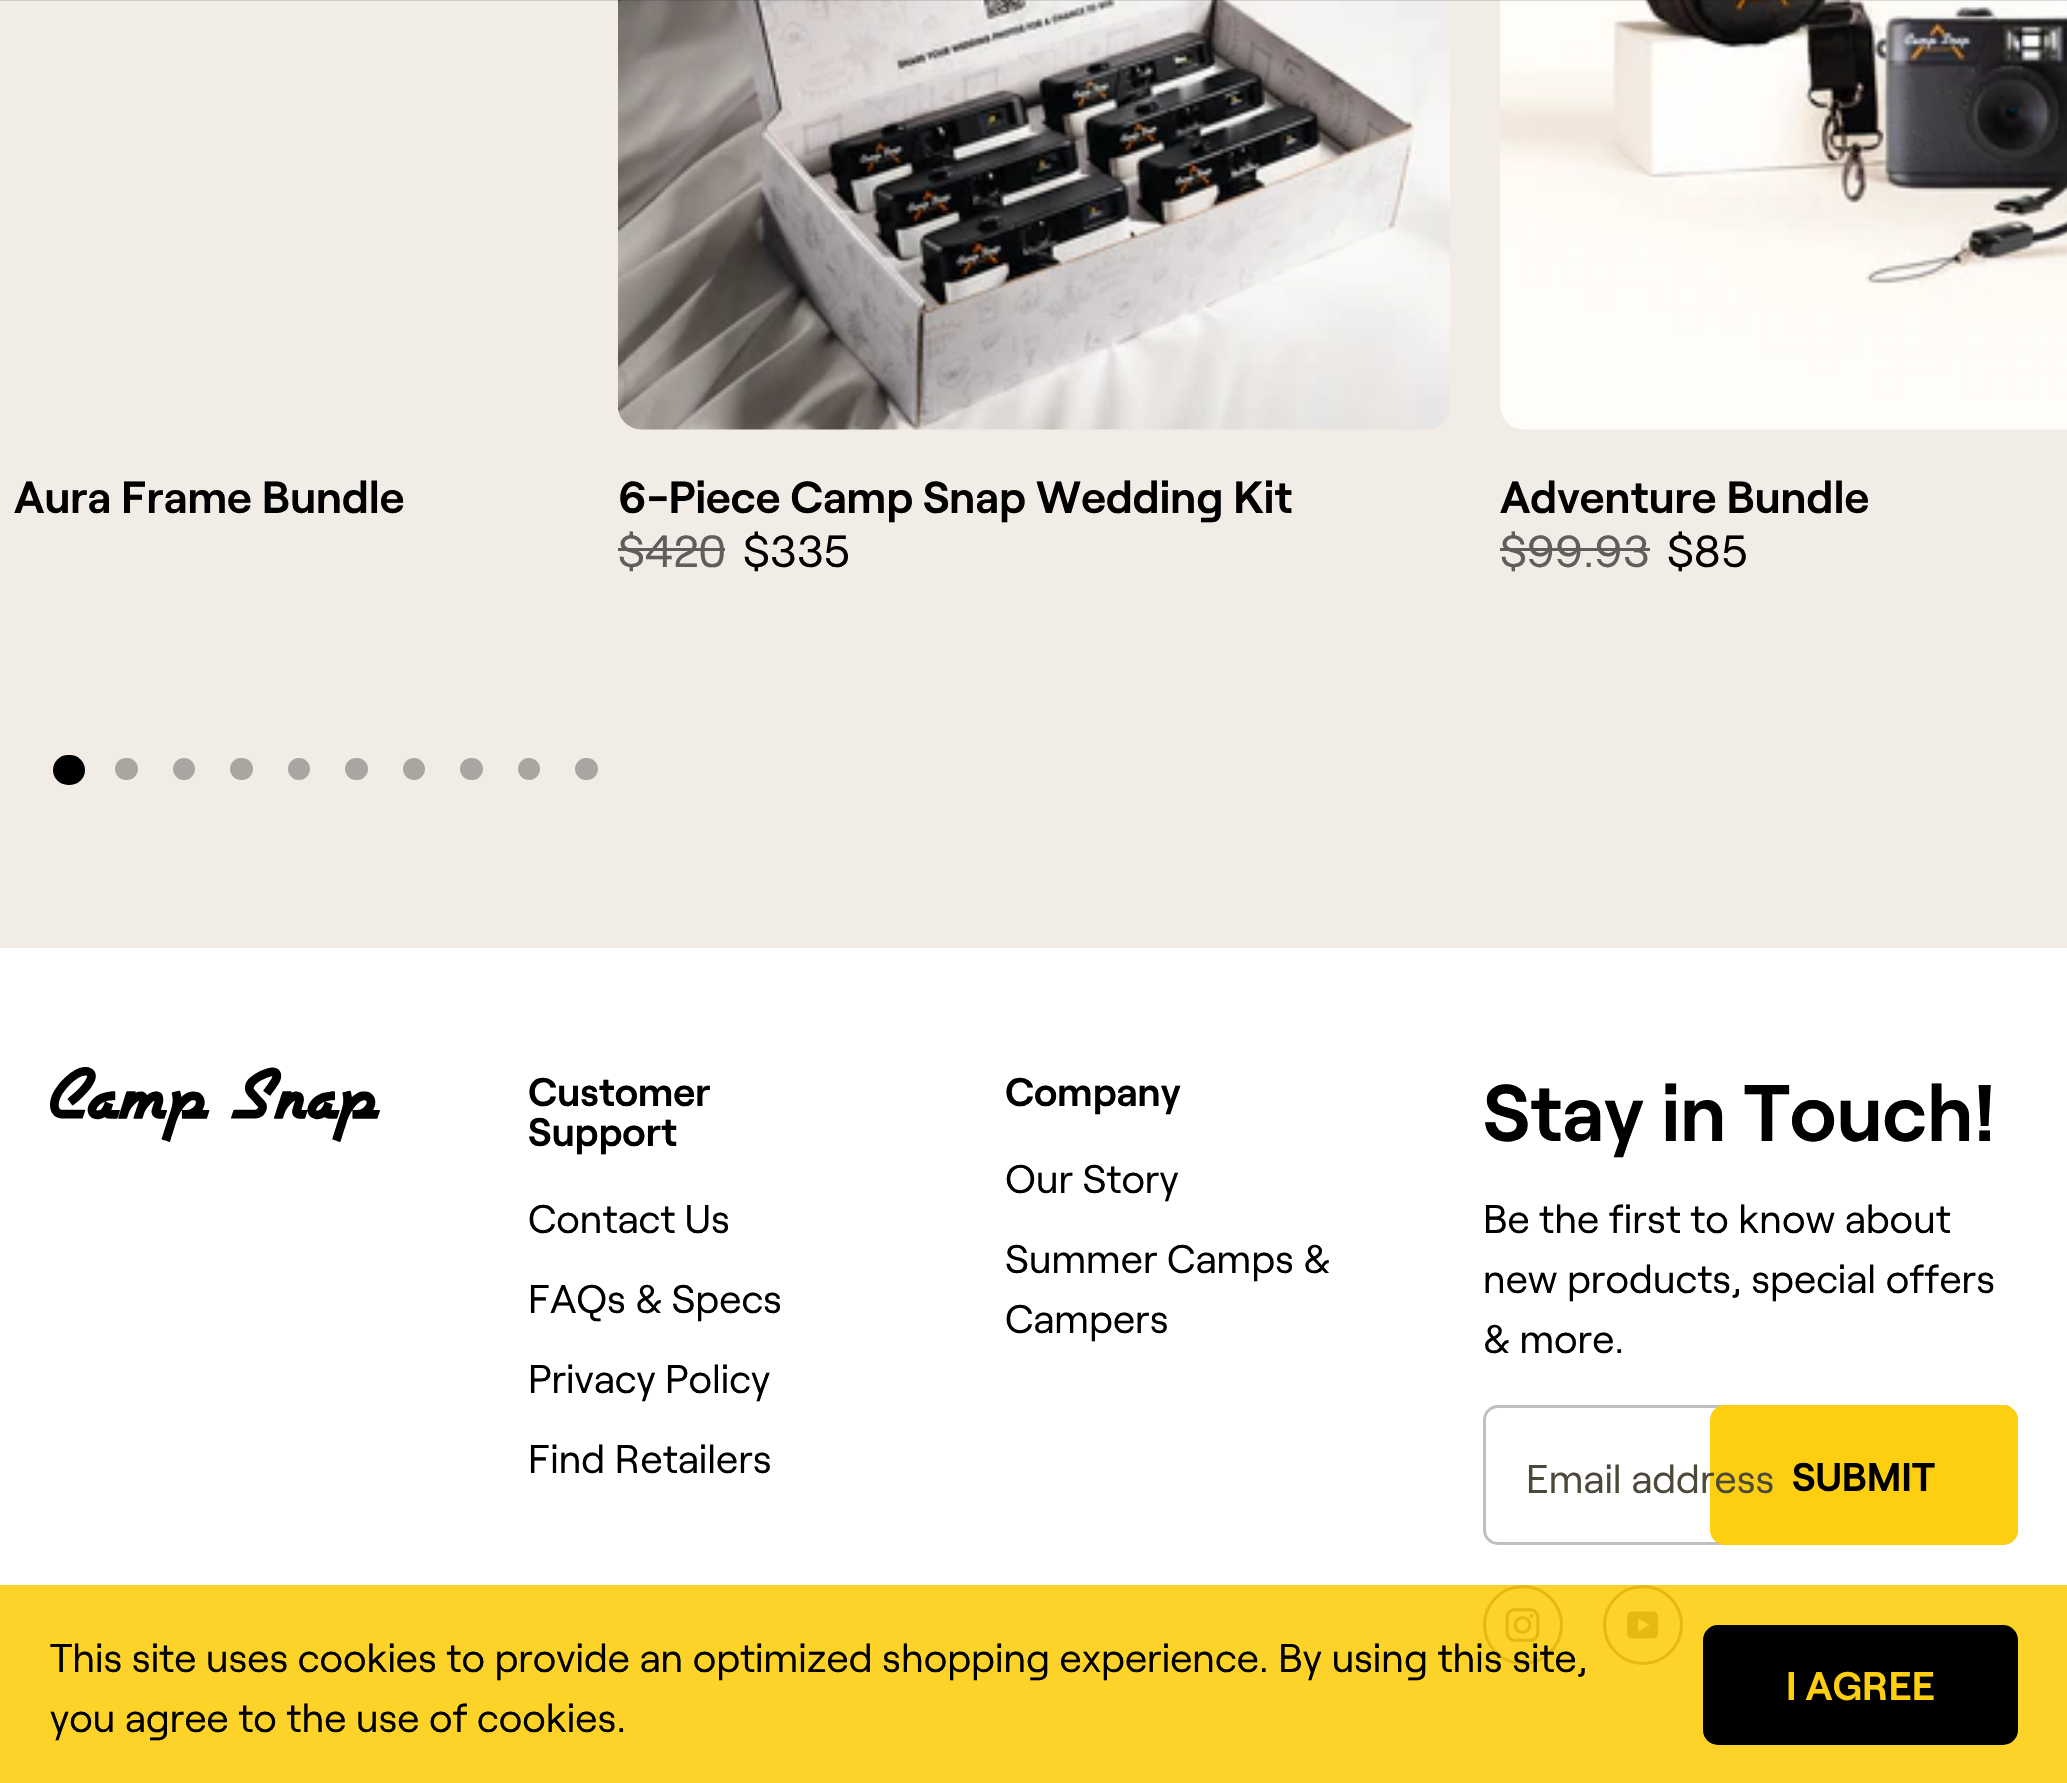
void draw(SkCanvas* canvas) {
  SkPaint paint;
  paint.setAntiAlias(true);
  auto face = [&](const char* family, int weight, float size, bool italic = false) {
    SkFontStyle style(weight, SkFontStyle::kNormal_Width,
      italic ? SkFontStyle::kItalic_Slant : SkFontStyle::kUpright_Slant);
    SkFont result(fontMgr->matchFamilyStyle(family, style), size);
    result.setSubpixel(true);
    return result;
  };
  auto paste = [&](const char* path, float x, float y, float w, float h) {
    auto image = SkImages::DeferredFromEncodedData(SkData::MakeFromFileName(path));
    canvas->drawImageRect(image, SkRect::MakeXYWH(x, y, w, h), SkSamplingOptions());
  };
  canvas->clear(0xfff1ece5);
  paste("img/1.png", 618, 0, 832, 430);
  paste("img/2.png", 1500, 0, 567, 430);
  {
    const struct { float x, y, w, h; SkColor color; } items[] = {
      {0, 0, 2067, 1, 0x21000000},
      {618, 548, 107, 3, 0xff605e5c},
      {1500, 548, 150, 3, 0xff605e5c},
    };
    for (auto [x, y, w, h, color] : items) {
      paint.setColor(color);
      canvas->drawRect(SkRect::MakeXYWH(x, y, w, h), paint);
    }
  }
  paint.setColor(0xff000000);
  canvas->drawRoundRect(SkRect::MakeXYWH(53, 755, 32, 30), 15, 15, paint);
  paint.setColor(0xffa9a5a0);
  canvas->drawRoundRect(SkRect::MakeXYWH(115, 758, 23, 22), 11, 11, paint);
  canvas->drawCircle(184, 769, 11, paint);
  canvas->drawRoundRect(SkRect::MakeXYWH(230, 758, 23, 22), 11, 11, paint);
  canvas->drawCircle(299, 769, 11, paint);
  canvas->drawRoundRect(SkRect::MakeXYWH(345, 758, 23, 22), 11, 11, paint);
  canvas->drawCircle(414, 769, 11, paint);
  canvas->drawRoundRect(SkRect::MakeXYWH(460, 758, 23, 22), 11, 11, paint);
  canvas->drawCircle(529, 769, 11, paint);
  canvas->drawRoundRect(SkRect::MakeXYWH(575, 758, 23, 22), 11, 11, paint);
  paint.setColor(0xffffffff);
  canvas->drawRect(SkRect::MakeXYWH(0, 948, 2067, 637), paint);
  paint.setColor(0xfffed329);
  canvas->drawRect(SkRect::MakeXYWH(0, 1585, 2067, 198), paint);
  paste("img/3.png", 50, 1067, 330, 75);
  paint.setStroke(true);
  paint.setStrokeWidth(3);
  paint.setColor(0xffbfbfbf);
  canvas->drawRoundRect(SkRect::MakeXYWH(1484.5f, 1406.5f, 532, 137), 13.5f, 13.5f, paint);
  paint.setStroke(false);
  paint.setColor(0xfffece11);
  canvas->drawRoundRect(SkRect::MakeXYWH(1711.5f, 1406.5f, 305, 137), 13.5f, 13.5f, paint);
  paint.setStroke(true);
  canvas->drawRoundRect(SkRect::MakeXYWH(1711.5f, 1406.5f, 305, 137), 13.5f, 13.5f, paint);
  paint.setColor(0xffe5b90f);
  canvas->drawCircle(1523, 1625, 38.5f, paint);
  paste("img/4.png", 1505, 1608, 35, 34);
  canvas->drawCircle(1643, 1625, 38.5f, paint);
  paste("img/5.png", 1627, 1611, 31, 28);
  paint.setStroke(false);
  paint.setColor(0xff000000);
  canvas->drawRoundRect(SkRect::MakeXYWH(1704.5f, 1626.5f, 312, 117), 13.5f, 13.5f, paint);
  paint.setStroke(true);
  canvas->drawRoundRect(SkRect::MakeXYWH(1704.5f, 1626.5f, 312, 117), 13.5f, 13.5f, paint);
  auto f0 = face("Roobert", 600, 45);
  paint.setStroke(false);
  canvas->drawString("Aura Frame Bundle", 14, 513, f0, paint);
  canvas->drawString("6-Piece Camp Snap Wedding Kit", 618, 513, f0, paint);
  auto f1 = face("Roobert", 400, 45);
  paint.setColor(0xff605e5c);
  canvas->drawString("$420", 618, 567, f1, paint);
  paint.setColor(0xff000000);
  canvas->drawString("$335", 743, 567, f1, paint);
  canvas->drawString("Adventure Bundle", 1500, 513, f0, paint);
  paint.setColor(0xff605e5c);
  canvas->drawString("$99.93", 1500, 567, f1, paint);
  paint.setColor(0xff000000);
  canvas->drawString("$85", 1667, 567, f1, paint);
  auto f2 = face("Roobert", 600, 40);
  canvas->drawString("Customer", 528, 1106, f2, paint);
  canvas->drawString("Support", 528, 1146, f2, paint);
  auto f3 = face("Roobert", 400, 40);
  {
    const struct { const char* s; float x, y; } items[] = {
      {"Contact Us", 528, 1233},
      {"FAQs & Specs", 528, 1313},
      {"Privacy Policy", 528, 1393},
      {"Find Retailers", 528, 1473},
    };
    for (auto [s, x, y] : items) {
      canvas->drawString(s, x, y, f3, paint);
    }
  }
  canvas->drawString("Company", 1005, 1106, f2, paint);
  {
    const struct { const char* s; float x, y; } items[] = {
      {"Our Story", 1005, 1193},
      {"Summer Camps &", 1005, 1273},
      {"Campers", 1005, 1333},
    };
    for (auto [s, x, y] : items) {
      canvas->drawString(s, x, y, f3, paint);
    }
  }
  auto f4 = face("Roobert", 600, 80);
  canvas->drawString("Stay in Touch!", 1483, 1141, f4, paint);
  {
    const struct { const char* s; float x, y; } items[] = {
      {"Be the first to know about", 1483, 1233},
      {"new products, special offers", 1483, 1293},
      {"& more.", 1483, 1353},
    };
    for (auto [s, x, y] : items) {
      canvas->drawString(s, x, y, f3, paint);
    }
  }
  paint.setColor(0xff4c493a);
  canvas->drawString("Email address", 1526, 1493, f3, paint);
  paint.setColor(0xff000000);
  canvas->drawString("SUBMIT", 1792, 1491, f2, paint);
  canvas->drawString("This site uses cookies to provide an optimized shopping experience. By using this site,", 50, 1672, f3, paint);
  canvas->drawString("you agree to the use of cookies.", 50, 1732, f3, paint);
  paint.setColor(0xfffece11);
  canvas->drawString("I AGREE", 1786, 1700, f2, paint);
}
